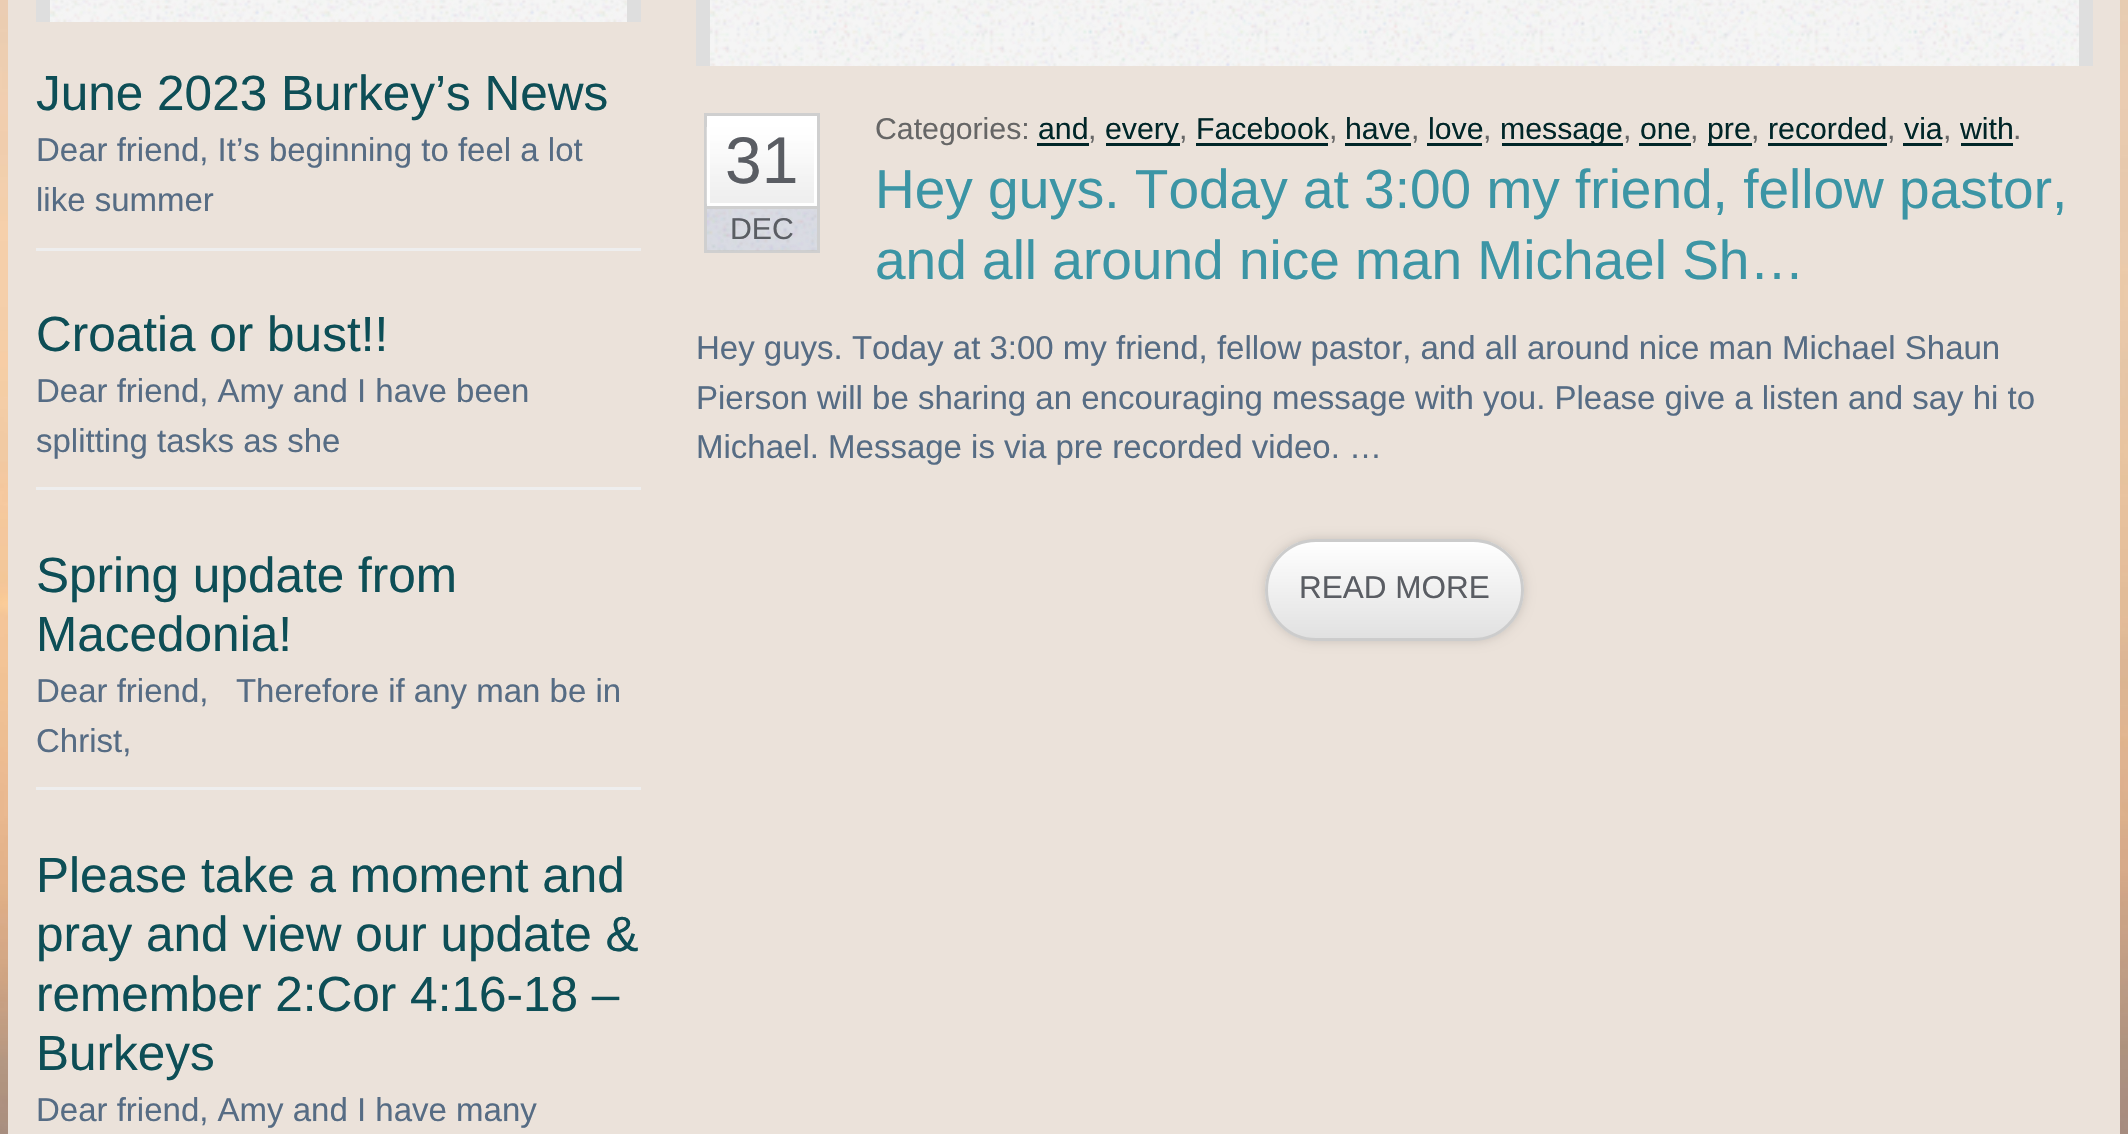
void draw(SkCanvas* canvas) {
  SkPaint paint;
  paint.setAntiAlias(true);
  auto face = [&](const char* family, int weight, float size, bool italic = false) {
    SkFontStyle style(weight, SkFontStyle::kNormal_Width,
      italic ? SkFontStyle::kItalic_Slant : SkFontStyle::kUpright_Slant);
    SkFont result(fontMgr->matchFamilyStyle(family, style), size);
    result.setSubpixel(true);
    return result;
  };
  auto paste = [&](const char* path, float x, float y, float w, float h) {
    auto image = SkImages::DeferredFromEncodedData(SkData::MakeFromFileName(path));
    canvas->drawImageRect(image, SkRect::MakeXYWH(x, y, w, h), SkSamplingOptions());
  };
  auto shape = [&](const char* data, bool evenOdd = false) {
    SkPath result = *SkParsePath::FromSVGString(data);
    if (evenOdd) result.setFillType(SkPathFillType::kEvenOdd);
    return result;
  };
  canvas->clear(0xffffffff);
  paste("img/1.png", 0, 0, 2128, 1134);
  paint.setColor(0xffebe2da);
  canvas->drawRect(SkRect::MakeXYWH(8, 0, 2112, 1134), paint);
  paint.setColor(0xfff5f5f5);
  canvas->drawRect(SkRect::MakeXYWH(50, 0, 577, 22), paint);
  paste("img/2.png", 50, 0, 577, 22);
  {
    const struct { float x, y, w, h; SkColor color; } items[] = {
      {627, 0, 14, 22, 0xffdedede},
      {36, 0, 14, 22, 0xffdedede},
      {36, 248, 605, 3, 0xffeeeeee},
      {36, 487, 605, 3, 0xffeeeeee},
      {36, 787, 605, 3, 0xffeeeeee},
      {710, 0, 1369, 66, 0xfff5f5f5},
    };
    for (auto [x, y, w, h, color] : items) {
      paint.setColor(color);
      canvas->drawRect(SkRect::MakeXYWH(x, y, w, h), paint);
    }
  }
  paste("img/3.png", 710, 0, 1369, 66);
  paint.setColor(0xffdedede);
  canvas->drawRect(SkRect::MakeXYWH(2079, 0, 14, 66), paint);
  canvas->drawRect(SkRect::MakeXYWH(696, 0, 14, 66), paint);
  paint.setStroke(true);
  paint.setStrokeWidth(3);
  paint.setColor(0xffcfcfcf);
  canvas->drawRect(SkRect::MakeXYWH(705.5f, 114.5f, 113, 137), paint);
  paint.setStroke(false);
  paint.setColor(0xffffffff);
  canvas->drawRect(SkRect::MakeXYWH(710, 119, 104, 8), paint);
  paste("img/4.png", 706, 127, 108, 77);
  paint.setStroke(true);
  canvas->drawRect(SkRect::MakeXYWH(708.5f, 117.5f, 107, 87), paint);
  paint.setStroke(false);
  paint.setColor(0xffd9dbe3);
  canvas->drawRect(SkRect::MakeXYWH(707, 209, 110, 41), paint);
  paste("img/5.png", 707, 209, 110, 42);
  {
    const struct { float x, y, w, h; SkColor color; } items[] = {
      {707, 206, 110, 3, 0xffcfcfcf},
      {1037, 143, 52, 3, 0xff002628},
      {1106, 143, 74, 3, 0xff002628},
      {1196, 143, 132, 3, 0xff002628},
      {1345, 143, 66, 3, 0xff002628},
      {1427, 143, 55, 3, 0xff002628},
      {1502, 143, 121, 3, 0xff002628},
      {1639, 143, 52, 3, 0xff002628},
      {1708, 143, 44, 3, 0xff002628},
      {1768, 143, 119, 3, 0xff002628},
      {1903, 143, 39, 3, 0xff002628},
      {1961, 143, 52, 3, 0xff002628},
    };
    for (auto [x, y, w, h, color] : items) {
      paint.setColor(color);
      canvas->drawRect(SkRect::MakeXYWH(x, y, w, h), paint);
    }
  }
  paint.setColor(0x26000000);
  paint.setMaskFilter(SkMaskFilter::MakeBlur(kNormal_SkBlurStyle, 5.5f));
  canvas->drawRoundRect(SkRect::MakeXYWH(1265, 539, 259, 102), 51, 51, paint);
  paint.setMaskFilter(nullptr);
  canvas->save();
  canvas->clipPath(shape("M1316 539H1473C1501 539 1524 562 1524 590C1524 618 1501 641 1473 641H1316C1288 641 1265 618 1265 590C1265 562 1288 539 1316 539Z"), true);
  {
    const SkColor colors[] = {0xffffffff, 0xffe1e1e1};
    const float stops[] = {0, 1};
    const SkPoint ends[] = {{1394, 542}, {1394, 638}};
    paint.setShader(SkGradientShader::MakeLinear(ends, colors, stops, 2, SkTileMode::kClamp));
    paint.setAlpha(255);
  }
  canvas->drawRect(SkRect::MakeXYWH(1265, 542, 259, 96), paint);
  canvas->restore();
  paint.setStroke(true);
  paint.setShader(nullptr);
  paint.setColor(0xffcccccc);
  canvas->drawRoundRect(SkRect::MakeXYWH(1266.5f, 540.5f, 256, 99), 49.5f, 49.5f, paint);
  auto f0 = face("Liberation Sans", 400, 49.5f);
  paint.setStroke(false);
  paint.setColor(0xff0d4e56);
  canvas->drawString("June 2023 Burkey’s News", 36, 110, f0, paint);
  auto f1 = face("Liberation Sans", 400, 33);
  paint.setColor(0xff566c84);
  canvas->drawString("Dear friend, It’s beginning to feel a lot", 36, 161, f1, paint);
  canvas->drawString("like summer", 36, 211, f1, paint);
  paint.setColor(0xff0d4e56);
  canvas->drawString("Croatia or bust!!", 36, 351, f0, paint);
  paint.setColor(0xff566c84);
  canvas->drawString("Dear friend, Amy and I have been", 36, 402, f1, paint);
  canvas->drawString("splitting tasks as she", 36, 452, f1, paint);
  paint.setColor(0xff0d4e56);
  canvas->drawString("Spring update from", 36, 592, f0, paint);
  canvas->drawString("Macedonia!", 36, 651, f0, paint);
  paint.setColor(0xff566c84);
  canvas->drawString("Dear friend,   Therefore if any man be in", 36, 702, f1, paint);
  canvas->drawString("Christ,", 36, 752, f1, paint);
  paint.setColor(0xff0d4e56);
  {
    const struct { const char* s; float x, y; } items[] = {
      {"Please take a moment and", 36, 892},
      {"pray and view our update &", 36, 951},
      {"remember 2:Cor 4:16-18 –", 36, 1011},
      {"Burkeys", 36, 1070},
    };
    for (auto [s, x, y] : items) {
      canvas->drawString(s, x, y, f0, paint);
    }
  }
  paint.setColor(0xff566c84);
  canvas->drawString("Dear friend, Amy and I have many", 36, 1121, f1, paint);
  auto f2 = face("Liberation Sans", 400, 66);
  paint.setColor(0xff5a5d63);
  canvas->drawString("31", 725, 183, f2, paint);
  auto f3 = face("Liberation Sans", 400, 30.25f);
  canvas->drawString("DEC", 730, 239, f3, paint);
  paint.setColor(0xff666666);
  canvas->drawString("Categories:", 875, 139, f3, paint);
  paint.setColor(0xff002628);
  canvas->drawString("and", 1038, 139, f3, paint);
  paint.setColor(0xff666666);
  canvas->drawString(",", 1088, 139, f3, paint);
  paint.setColor(0xff002628);
  canvas->drawString("every", 1105, 139, f3, paint);
  paint.setColor(0xff666666);
  canvas->drawString(",", 1179, 139, f3, paint);
  paint.setColor(0xff002628);
  canvas->drawString("Facebook", 1196, 139, f3, paint);
  paint.setColor(0xff666666);
  canvas->drawString(",", 1329, 139, f3, paint);
  paint.setColor(0xff002628);
  canvas->drawString("have", 1345, 139, f3, paint);
  paint.setColor(0xff666666);
  canvas->drawString(",", 1411, 139, f3, paint);
  paint.setColor(0xff002628);
  canvas->drawString("love", 1428, 139, f3, paint);
  paint.setColor(0xff666666);
  canvas->drawString(",", 1483, 139, f3, paint);
  paint.setColor(0xff002628);
  canvas->drawString("message", 1500, 139, f3, paint);
  paint.setColor(0xff666666);
  canvas->drawString(",", 1623, 139, f3, paint);
  paint.setColor(0xff002628);
  canvas->drawString("one", 1640, 139, f3, paint);
  paint.setColor(0xff666666);
  canvas->drawString(",", 1690, 139, f3, paint);
  paint.setColor(0xff002628);
  canvas->drawString("pre", 1707, 139, f3, paint);
  paint.setColor(0xff666666);
  canvas->drawString(",", 1751, 139, f3, paint);
  paint.setColor(0xff002628);
  canvas->drawString("recorded", 1768, 139, f3, paint);
  paint.setColor(0xff666666);
  canvas->drawString(",", 1887, 139, f3, paint);
  paint.setColor(0xff002628);
  canvas->drawString("via", 1904, 139, f3, paint);
  paint.setColor(0xff666666);
  canvas->drawString(",", 1943, 139, f3, paint);
  paint.setColor(0xff002628);
  canvas->drawString("with", 1960, 139, f3, paint);
  paint.setColor(0xff666666);
  canvas->drawString(".", 2013, 139, f3, paint);
  auto f4 = face("Liberation Sans", 400, 55);
  paint.setColor(0xff3c95a5);
  canvas->drawString("Hey guys. Today at 3:00 my friend, fellow pastor,", 875, 208, f4, paint);
  canvas->drawString("and all around nice man Michael Sh…", 875, 279, f4, paint);
  paint.setColor(0xff566c84);
  {
    const struct { const char* s; float x, y; } items[] = {
      {"Hey guys. Today at 3:00 my friend, fellow pastor, and all around nice man Michael Shaun", 696, 359},
      {"Pierson will be sharing an encouraging message with you. Please give a listen and say hi to", 696, 409},
      {"Michael. Message is via pre recorded video. …", 696, 458},
    };
    for (auto [s, x, y] : items) {
      canvas->drawString(s, x, y, f1, paint);
    }
  }
  auto f5 = face("Liberation Sans", 400, 31.5f);
  paint.setColor(0xff5a5d63);
  canvas->drawString("READ MORE", 1299, 598, f5, paint);
}
